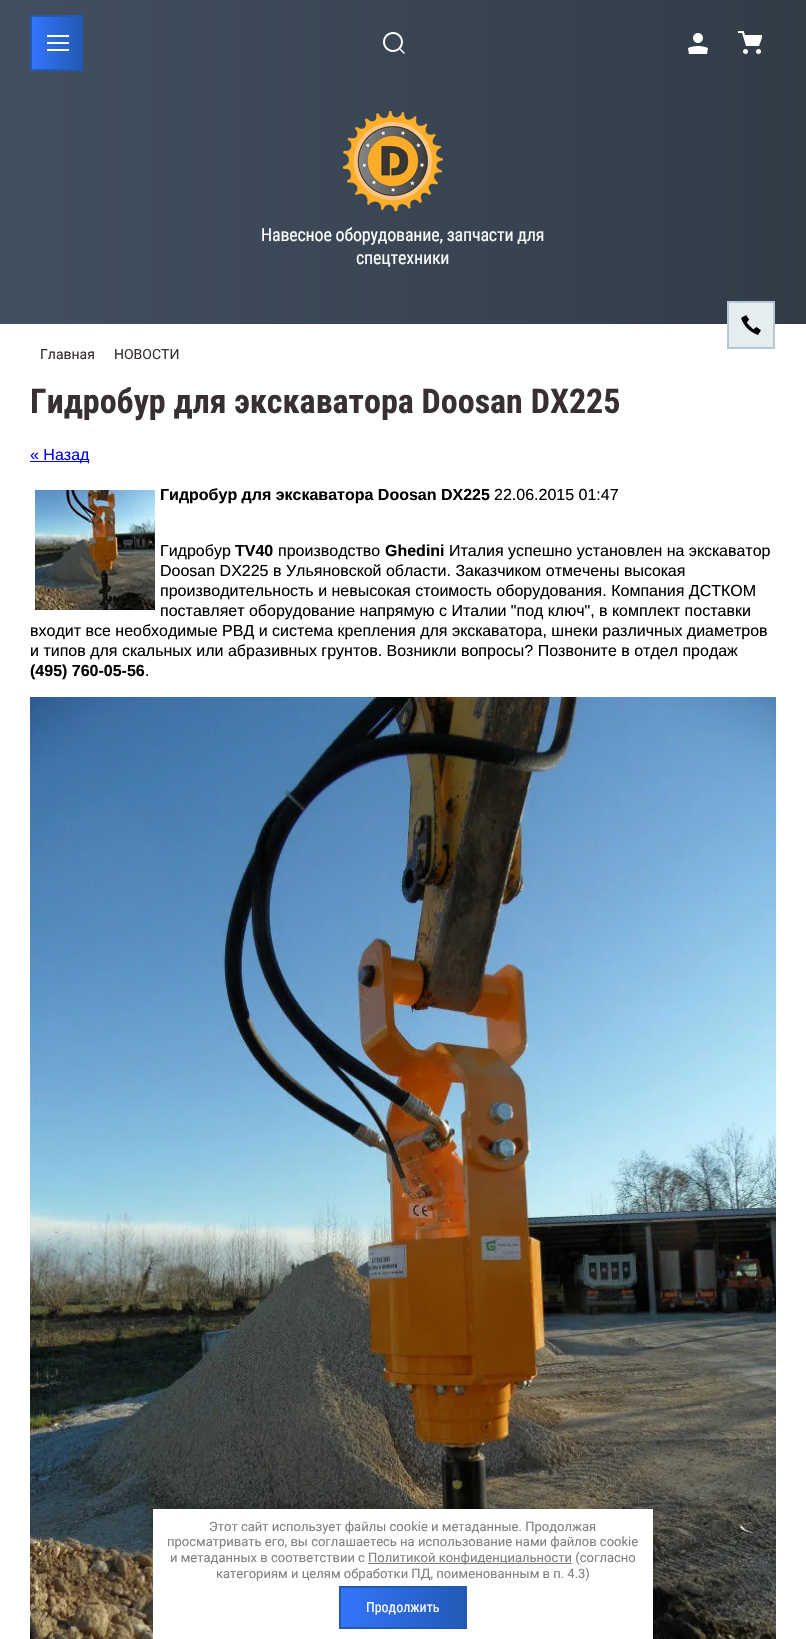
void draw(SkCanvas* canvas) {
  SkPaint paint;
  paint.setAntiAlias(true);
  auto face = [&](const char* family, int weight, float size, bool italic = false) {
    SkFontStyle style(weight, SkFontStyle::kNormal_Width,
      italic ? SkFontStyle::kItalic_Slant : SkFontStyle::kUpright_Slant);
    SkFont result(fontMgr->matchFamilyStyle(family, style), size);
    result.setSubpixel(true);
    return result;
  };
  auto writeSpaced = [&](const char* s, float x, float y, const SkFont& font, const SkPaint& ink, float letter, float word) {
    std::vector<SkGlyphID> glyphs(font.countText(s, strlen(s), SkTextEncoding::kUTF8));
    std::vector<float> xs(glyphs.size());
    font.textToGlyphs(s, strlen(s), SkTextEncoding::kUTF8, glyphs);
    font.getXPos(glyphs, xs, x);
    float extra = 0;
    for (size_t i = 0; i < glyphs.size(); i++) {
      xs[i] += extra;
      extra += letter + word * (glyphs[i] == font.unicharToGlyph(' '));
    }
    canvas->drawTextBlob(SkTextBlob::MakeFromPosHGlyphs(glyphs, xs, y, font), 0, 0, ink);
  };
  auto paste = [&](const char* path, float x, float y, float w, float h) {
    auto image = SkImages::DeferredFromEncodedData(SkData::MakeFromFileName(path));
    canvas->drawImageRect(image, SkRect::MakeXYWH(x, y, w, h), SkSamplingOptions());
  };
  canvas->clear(0xffffffff);
  {
    const SkColor colors[] = {0xff424f60, 0xff313c47};
    const float stops[] = {0, 1};
    const SkPoint ends[] = {{0, 162}, {806, 162}};
    paint.setShader(SkGradientShader::MakeLinear(ends, colors, stops, 2, SkTileMode::kClamp));
    paint.setAlpha(255);
  }
  canvas->drawRect(SkRect::MakeXYWH(0, 0, 806, 324), paint);
  {
    const SkColor colors[] = {0xff3375fc, 0xff235ab6};
    const float stops[] = {0, 1};
    const SkPoint ends[] = {{32, 43}, {81, 43}};
    paint.setShader(SkGradientShader::MakeLinear(ends, colors, stops, 2, SkTileMode::kClamp));
    paint.setAlpha(255);
  }
  canvas->drawRect(SkRect::MakeXYWH(32, 17, 49, 52), paint);
  paint.setStroke(true);
  paint.setStrokeWidth(2);
  paint.setShader(nullptr);
  paint.setColor(0xff235ab7);
  canvas->drawRect(SkRect::MakeXYWH(31, 16, 51, 54), paint);
  paste("img/1.png", 47, 35, 22, 16);
  paste("img/2.png", 383, 32, 22, 22);
  paste("img/3.png", 688, 33, 20, 21);
  paste("img/4.png", 738, 31, 24, 23);
  paste("img/5.png", 343, 111, 100, 100);
  paint.setStroke(false);
  paint.setColor(0xffe6edf1);
  canvas->drawRect(SkRect::MakeXYWH(729, 303, 44, 44), paint);
  paste("img/6.png", 741, 315, 20, 20);
  paint.setStroke(true);
  paint.setColor(0xffb4c8d5);
  canvas->drawRect(SkRect::MakeXYWH(728, 302, 46, 46), paint);
  paint.setStroke(false);
  paint.setColor(0xff0000ff);
  canvas->drawRect(SkRect::MakeXYWH(30, 461, 59, 1), paint);
  paste("img/7.png", 35, 490, 120, 120);
  paste("img/8.png", 30, 697, 746, 942);
  paint.setColor(0x3b000000);
  paint.setMaskFilter(SkMaskFilter::MakeBlur(kNormal_SkBlurStyle, 5));
  canvas->drawRect(SkRect::MakeXYWH(153, 1510, 500, 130), paint);
  paint.setMaskFilter(nullptr);
  paint.setColor(0xffffffff);
  canvas->drawRect(SkRect::MakeXYWH(153, 1509, 500, 130), paint);
  paint.setColor(0xff808080);
  canvas->drawRect(SkRect::MakeXYWH(368, 1563, 204, 1), paint);
  {
    const SkColor colors[] = {0xff3375fc, 0xff235ab6};
    const float stops[] = {0, 1};
    const SkPoint ends[] = {{341, 1608}, {465, 1608}};
    paint.setShader(SkGradientShader::MakeLinear(ends, colors, stops, 2, SkTileMode::kClamp));
    paint.setAlpha(255);
  }
  canvas->drawRect(SkRect::MakeXYWH(341, 1588, 124, 39), paint);
  paint.setStroke(true);
  paint.setShader(nullptr);
  paint.setColor(0xff235ab7);
  canvas->drawRect(SkRect::MakeXYWH(340, 1587, 126, 41), paint);
  auto f0 = face("Roboto Condensed", 400, 18);
  paint.setStroke(false);
  paint.setColor(0xffffffff);
  writeSpaced("Навесное оборудование, запчасти для", 261, 241, f0, paint, -0.2f, 0);
  writeSpaced("спецтехники", 356, 264, f0, paint, -0.2f, 0);
  auto f1 = face("Roboto", 400, 14);
  paint.setColor(0xff383030);
  canvas->drawString("Главная", 40, 359, f1, paint);
  canvas->drawString("НОВОСТИ", 114, 359, f1, paint);
  auto f2 = face("Roboto Condensed", 700, 34);
  canvas->drawString("Гидробур для экскаватора Doosan DX225", 30, 413, f2, paint);
  auto f3 = face("Liberation Sans", 400, 16);
  paint.setColor(0xff0000ff);
  canvas->drawString("« Назад", 30, 460, f3, paint);
  auto f4 = face("Liberation Sans", 700, 16);
  paint.setColor(0xff000000);
  canvas->drawString("Гидробур для экскаватора Doosan DX225", 160, 500, f4, paint);
  canvas->drawString("22.06.2015 01:47", 494, 500, f3, paint);
  canvas->drawString("Гидробур", 160, 556, f3, paint);
  canvas->drawString("TV40", 235, 556, f4, paint);
  canvas->drawString("производство", 278, 556, f3, paint);
  canvas->drawString("Ghedini", 385, 556, f4, paint);
  {
    const struct { const char* s; float x, y; } items[] = {
      {"Италия успешно установлен на экскаватор", 449, 556},
      {"Doosan DX225 в Ульяновской области. Заказчиком отмечены высокая", 160, 576},
      {"производительность и невысокая стоимость оборудования. Компания ДСТКОМ", 160, 596},
      {"поставляет оборудование напрямую с Италии \"под ключ\", в комплект поставки", 160, 616},
      {"входит все необходимые РВД и система крепления для экскаватора, шнеки различных диаметров", 30, 636},
      {"и типов для скальных или абразивных грунтов. Возникли вопросы? Позвоните в отдел продаж", 30, 656},
    };
    for (auto [s, x, y] : items) {
      canvas->drawString(s, x, y, f3, paint);
    }
  }
  canvas->drawString("(495) 760-05-56", 30, 676, f4, paint);
  canvas->drawString(".", 145, 676, f3, paint);
  auto f5 = face("Roboto", 400, 13);
  paint.setColor(0xff808080);
  {
    const struct { const char* s; float x, y; } items[] = {
      {"Этот сайт использует файлы cookie и метаданные. Продолжая", 209, 1531},
      {"просматривать его, вы соглашаетесь на использование нами файлов cookie", 167, 1546},
      {"и метаданных в соответствии с", 170, 1562},
      {"Политикой конфиденциальности (согласно", 368, 1562},
      {"категориям и целям обработки ПД, поименованным в п. 4.3)", 216, 1578},
    };
    for (auto [s, x, y] : items) {
      canvas->drawString(s, x, y, f5, paint);
    }
  }
  auto f6 = face("Roboto Condensed", 400, 14);
  paint.setColor(0xffffffff);
  canvas->drawString("Продолжить", 366, 1612, f6, paint);
}
